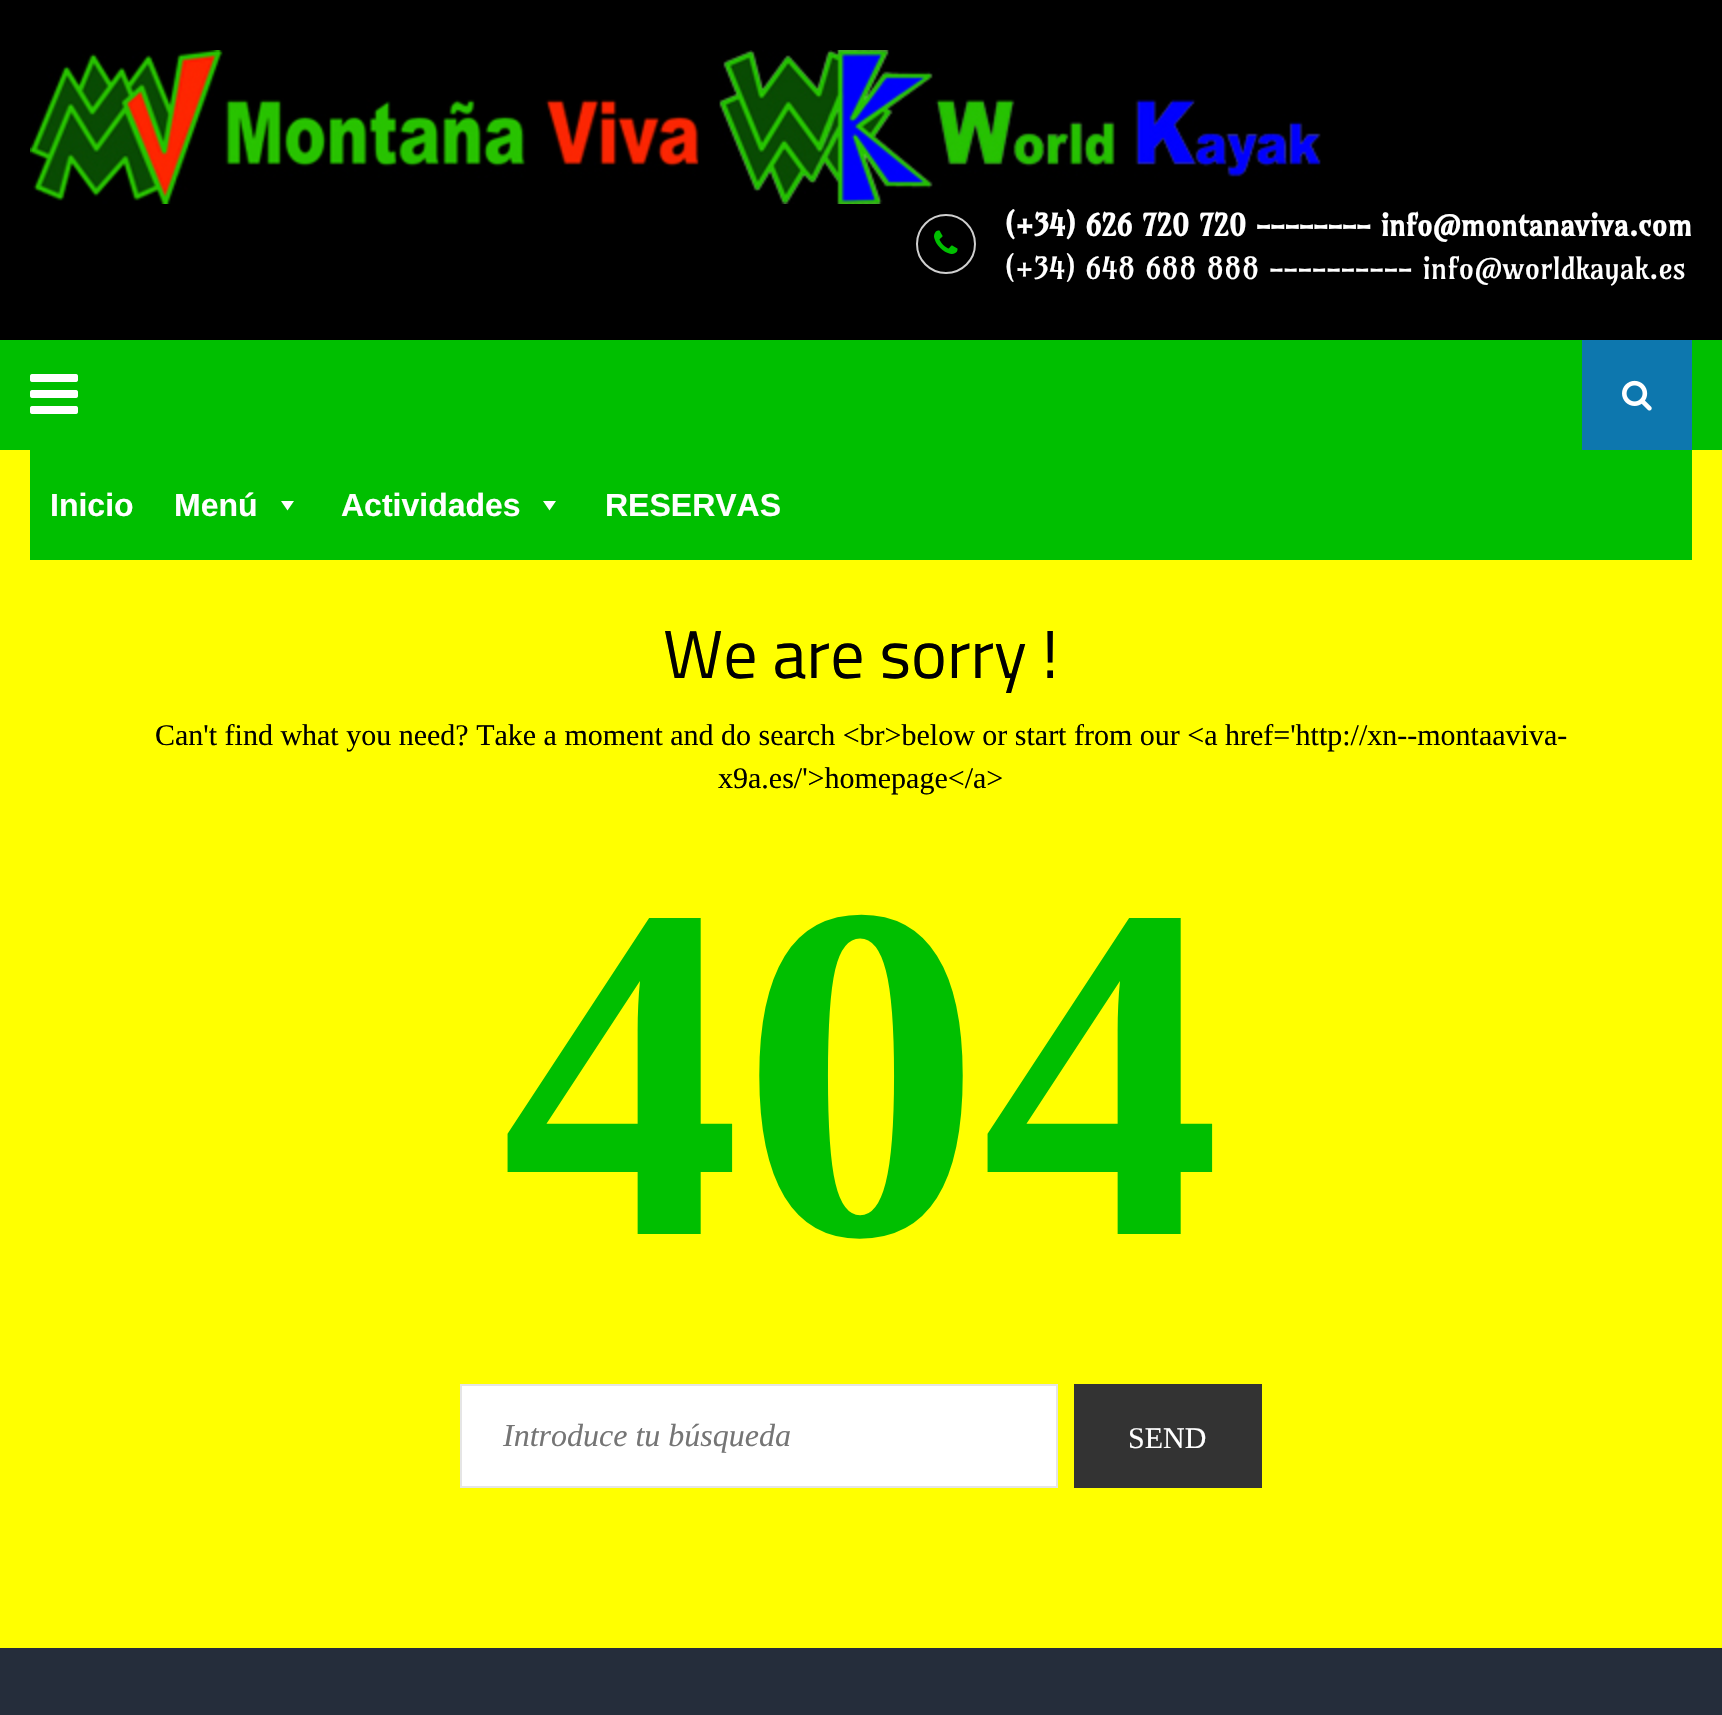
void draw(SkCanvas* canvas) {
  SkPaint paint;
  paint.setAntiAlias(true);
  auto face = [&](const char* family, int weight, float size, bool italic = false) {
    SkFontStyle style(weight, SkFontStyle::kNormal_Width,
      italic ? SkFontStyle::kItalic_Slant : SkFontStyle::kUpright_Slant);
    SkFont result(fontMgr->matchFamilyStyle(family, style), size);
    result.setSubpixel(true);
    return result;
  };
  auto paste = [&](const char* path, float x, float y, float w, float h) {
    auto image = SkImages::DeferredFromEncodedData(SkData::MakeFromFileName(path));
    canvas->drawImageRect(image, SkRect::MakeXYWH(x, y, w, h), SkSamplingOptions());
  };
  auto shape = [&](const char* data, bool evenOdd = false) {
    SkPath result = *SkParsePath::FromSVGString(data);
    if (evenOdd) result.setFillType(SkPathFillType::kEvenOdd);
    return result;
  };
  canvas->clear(0xffffff00);
  paint.setColor(0xff000000);
  canvas->drawRect(SkRect::MakeXYWH(0, 0, 1722, 340), paint);
  paste("img/1.png", 30, 50, 1291, 154);
  paint.setStroke(true);
  paint.setStrokeWidth(2);
  paint.setColor(0xffcfcfcf);
  canvas->drawCircle(946, 244, 29, paint);
  paste("img/2.png", 934, 230, 24, 24);
  paint.setStroke(false);
  paint.setColor(0xff00bf00);
  canvas->drawRect(SkRect::MakeXYWH(0, 340, 1722, 110), paint);
  paste("img/3.png", 30, 374, 48, 40);
  paint.setColor(0xff0d77ae);
  canvas->drawRect(SkRect::MakeXYWH(1582, 340, 110, 110), paint);
  paste("img/4.png", 1622, 380, 30, 31);
  paint.setColor(0xff00bf00);
  canvas->drawRect(SkRect::MakeXYWH(30, 450, 1662, 110), paint);
  paint.setColor(0xffffffff);
  canvas->drawPath(shape("M294 501L287.5 510.5L281 501Z"), paint);
  canvas->drawPath(shape("M556 501L549.5 510.5L543 501Z"), paint);
  canvas->drawRect(SkRect::MakeXYWH(461, 1385, 596, 102), paint);
  paint.setStroke(true);
  paint.setColor(0xffe5e5e5);
  canvas->drawRect(SkRect::MakeXYWH(461, 1385, 596, 102), paint);
  paint.setStroke(false);
  paint.setColor(0xff333333);
  canvas->drawRect(SkRect::MakeXYWH(1074, 1384, 188, 104), paint);
  paint.setColor(0xff252d3b);
  canvas->drawRect(SkRect::MakeXYWH(0, 1648, 1722, 67), paint);
  auto f0 = face("Amarante", 700, 30);
  paint.setColor(0xffffffff);
  canvas->drawString("(+34) 626 720 720 -------- info@montanaviva.com", 1005, 236, f0, paint);
  auto f1 = face("Amarante", 400, 30);
  canvas->drawString("(+34) 648 688 888 ---------- info@worldkayak.es", 1005, 279, f1, paint);
  auto f2 = face("Liberation Sans", 700, 32);
  {
    const struct { const char* s; float x, y; } items[] = {
      {"Inicio", 50, 516},
      {"Menú", 174, 516},
      {"Actividades", 341, 516},
      {"RESERVAS", 605, 516},
    };
    for (auto [s, x, y] : items) {
      canvas->drawString(s, x, y, f2, paint);
    }
  }
  auto f3 = face("Titillium Web", 400, 68);
  paint.setColor(0xff000000);
  canvas->drawString("We are sorry !", 663, 678, f3, paint);
  auto f4 = face("Liberation Serif", 400, 30);
  canvas->drawString("Can't find what you need? Take a moment and do search <br>below or start from our <a href='http://xn--montaaviva-", 155, 745, f4, paint);
  canvas->drawString("x9a.es/'>homepage</a>", 718, 788, f4, paint);
  auto f5 = face("Liberation Serif", 700, 480);
  paint.setColor(0xff00bf00);
  canvas->drawString("404", 501, 1234, f5, paint);
  auto f6 = face("Liberation Serif", 400, 32, true);
  paint.setColor(0xff757575);
  canvas->drawString("Introduce tu búsqueda", 503, 1446, f6, paint);
  paint.setColor(0xffffffff);
  canvas->drawString("SEND", 1128, 1448, f4, paint);
}
